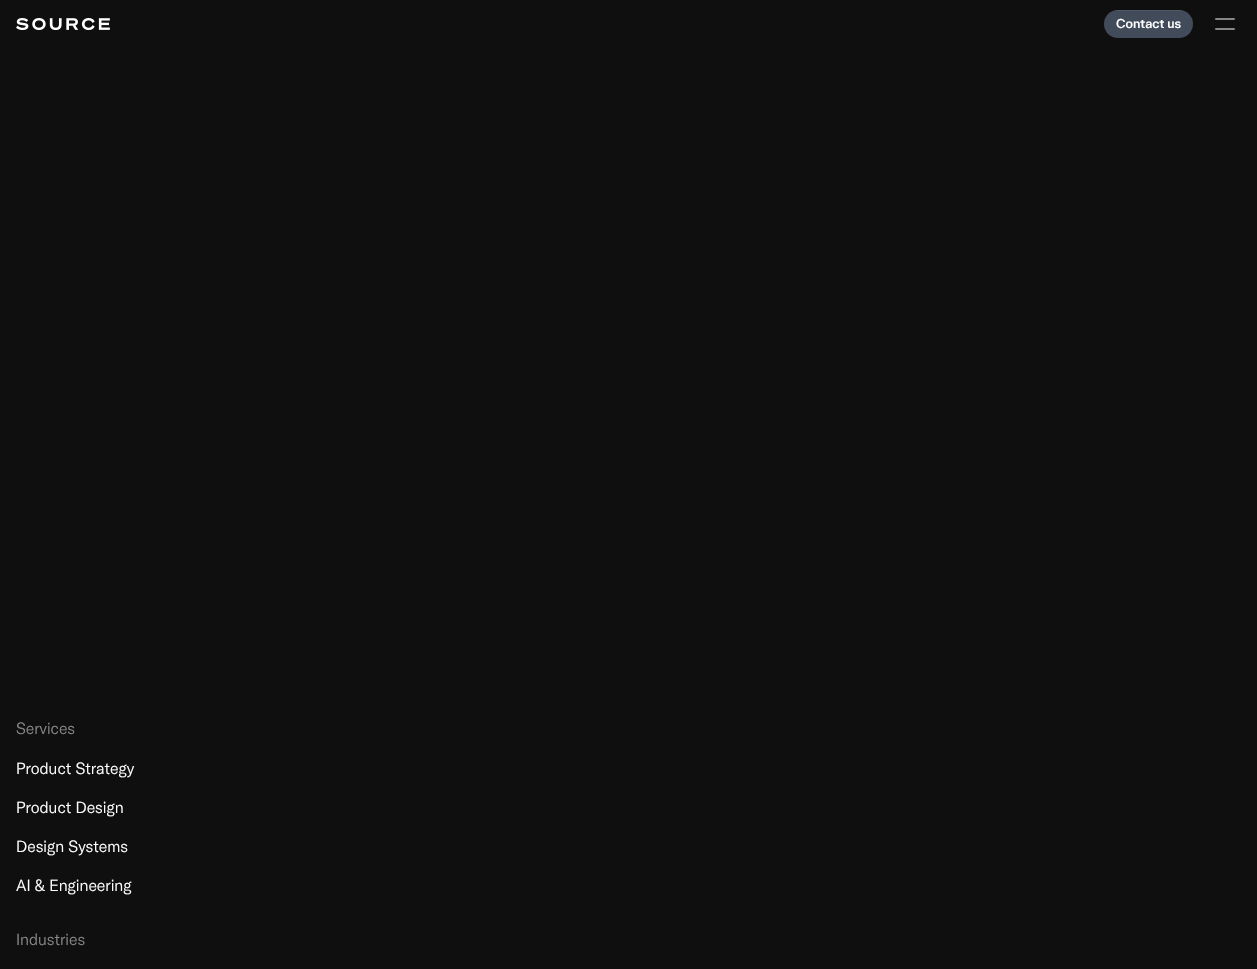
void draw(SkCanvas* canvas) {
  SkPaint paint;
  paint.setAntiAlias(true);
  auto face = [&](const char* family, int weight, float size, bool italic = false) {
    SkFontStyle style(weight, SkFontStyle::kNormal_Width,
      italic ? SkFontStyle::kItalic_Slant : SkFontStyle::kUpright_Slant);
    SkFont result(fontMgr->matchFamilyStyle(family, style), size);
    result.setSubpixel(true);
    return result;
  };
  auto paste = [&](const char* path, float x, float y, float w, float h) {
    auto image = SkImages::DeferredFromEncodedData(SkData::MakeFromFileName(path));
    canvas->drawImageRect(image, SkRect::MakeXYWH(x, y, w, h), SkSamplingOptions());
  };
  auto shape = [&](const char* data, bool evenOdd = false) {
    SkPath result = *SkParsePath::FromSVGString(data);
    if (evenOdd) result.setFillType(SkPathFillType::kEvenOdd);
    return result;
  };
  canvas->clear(0xff0f0f0f);
  paste("img/1.png", 16, 18, 94, 12);
  paint.setColor(0xff414b59);
  canvas->drawRoundRect(SkRect::MakeXYWH(1104, 10, 89, 28), 14, 14, paint);
  canvas->save();
  canvas->clipPath(shape("M1118 10H1179C1186.5 10 1193 16.5 1193 24C1193 31.5 1186.5 38 1179 38H1118C1110.5 38 1104 31.5 1104 24C1104 16.5 1110.5 10 1118 10Z"), true);
  paint.setColor(0x12ffffff);
  canvas->drawRect(SkRect::MakeXYWH(1111, 10, 75, 1), paint);
  canvas->restore();
  paint.setColor(0xff878787);
  canvas->drawRoundRect(SkRect::MakeXYWH(1215, 18, 20, 2), 1, 1, paint);
  canvas->drawRoundRect(SkRect::MakeXYWH(1215, 28, 20, 2), 1, 1, paint);
  auto f0 = face("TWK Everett", 500, 12);
  paint.setColor(0xffffffff);
  canvas->drawString("Contact us", 1116, 28, f0, paint);
  auto f1 = face("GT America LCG", 300, 16);
  paint.setColor(0xff878787);
  canvas->drawString("Services", 16, 734, f1, paint);
  paint.setColor(0xffffffff);
  {
    const struct { const char* s; float x, y; } items[] = {
      {"Product Strategy", 16, 774},
      {"Product Design", 16, 813},
      {"Design Systems", 16, 852},
      {"AI & Engineering", 16, 891},
    };
    for (auto [s, x, y] : items) {
      canvas->drawString(s, x, y, f1, paint);
    }
  }
  paint.setColor(0xff878787);
  canvas->drawString("Industries", 16, 945, f1, paint);
}
